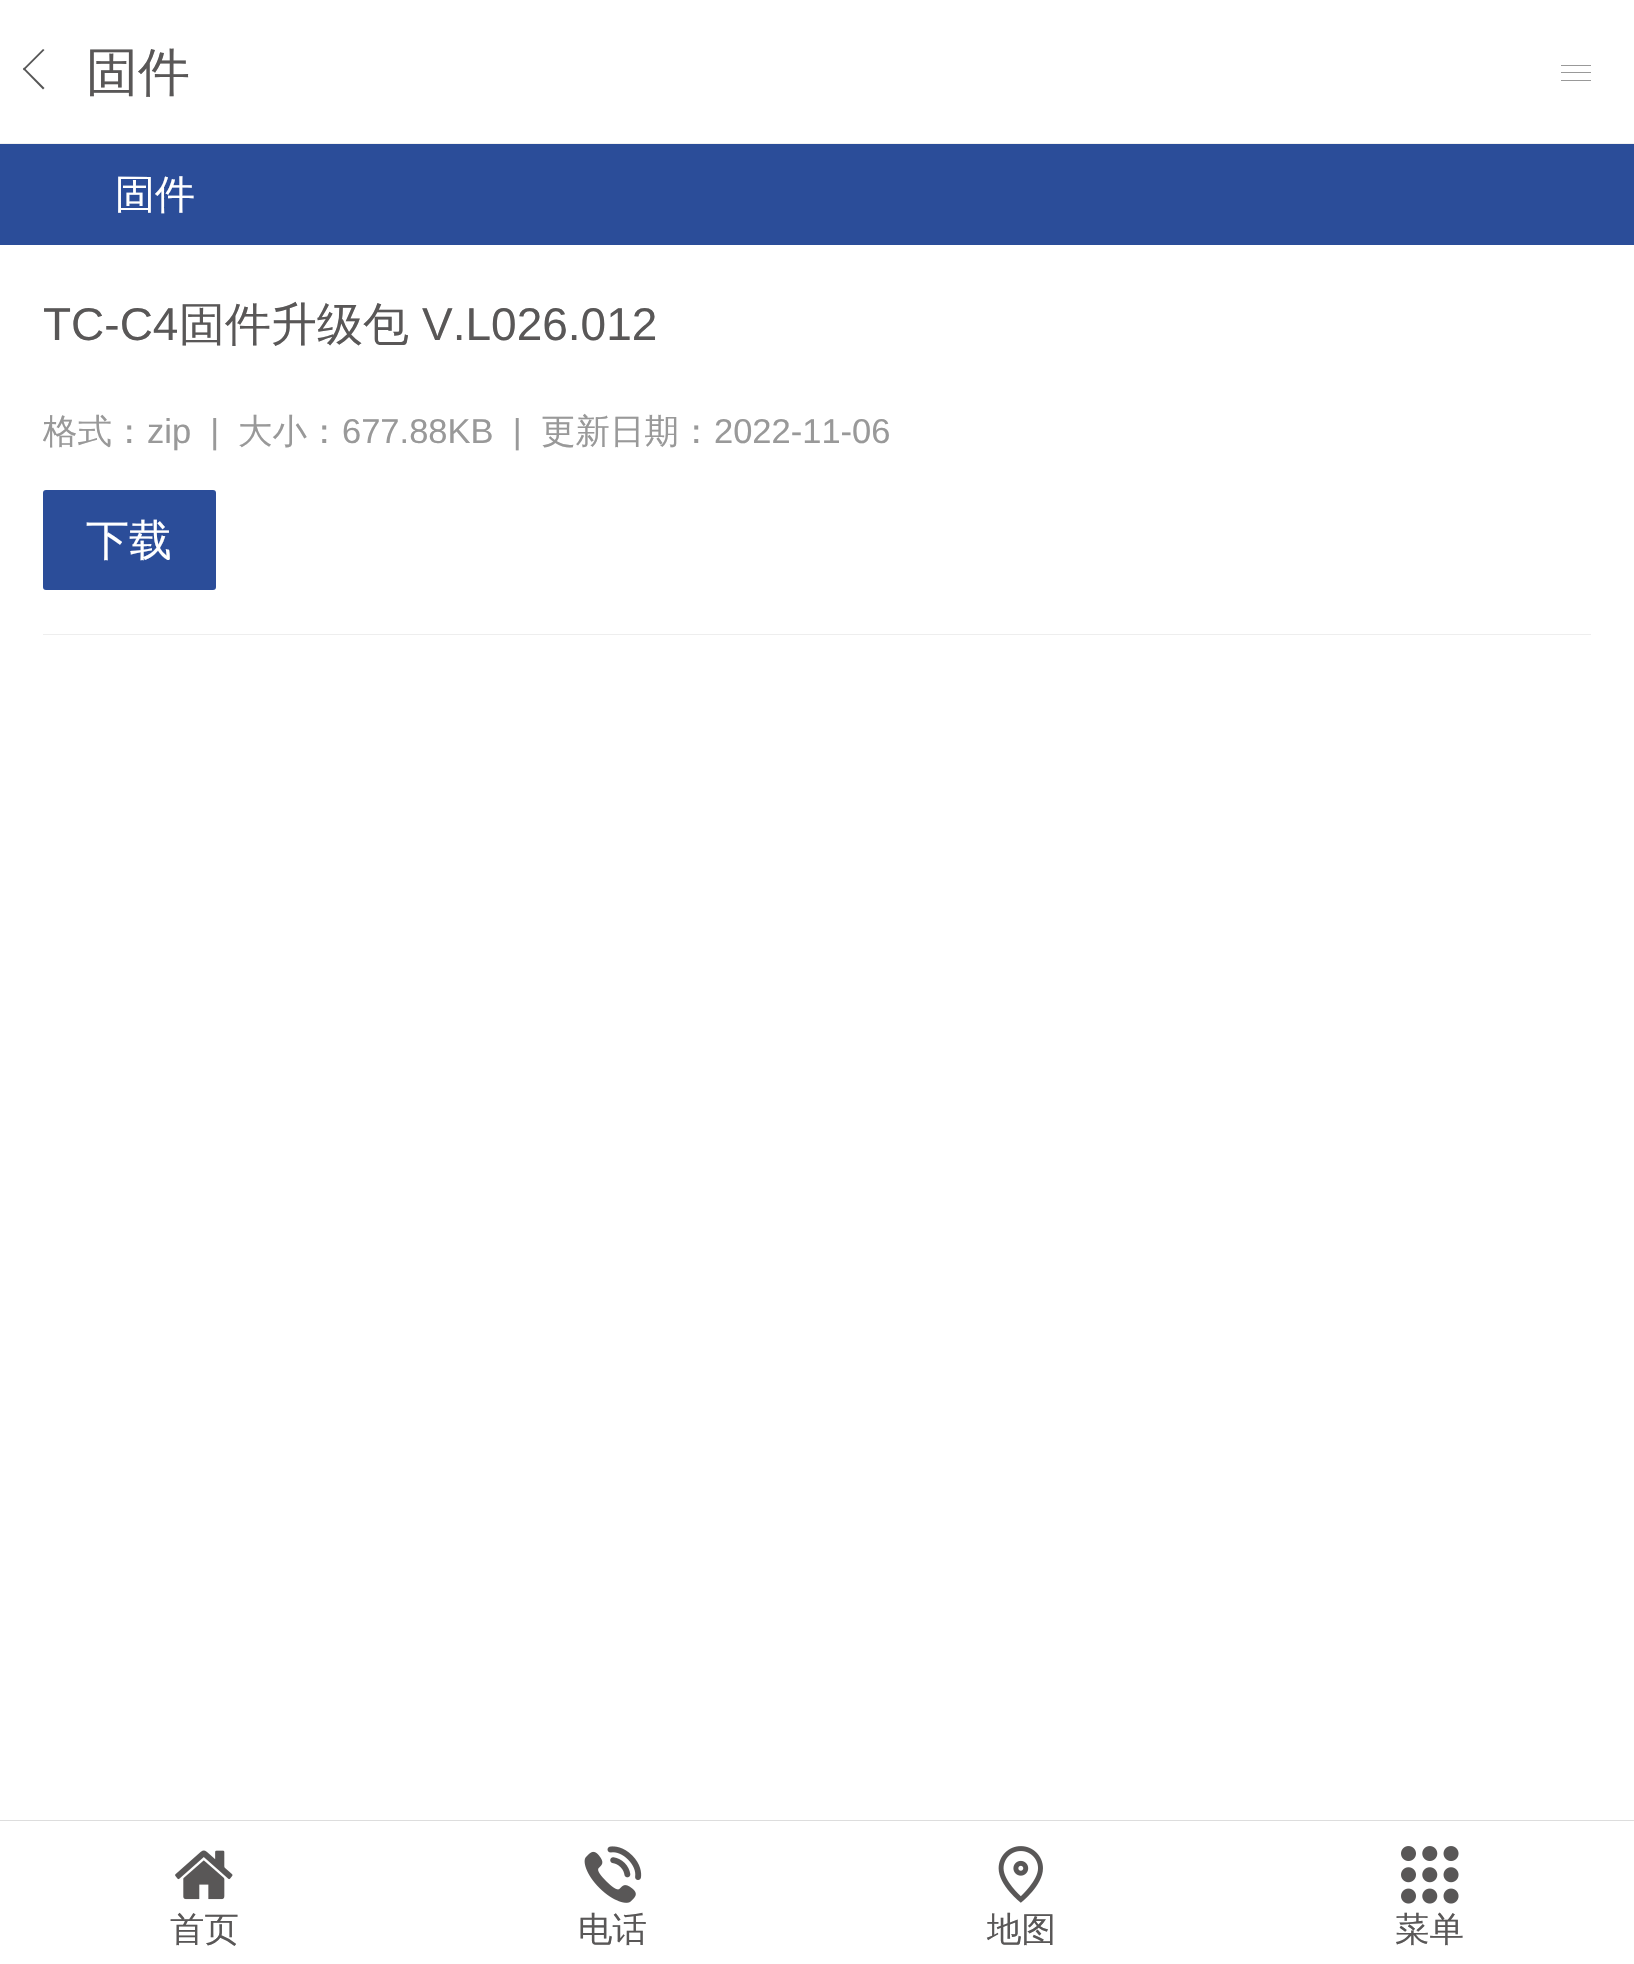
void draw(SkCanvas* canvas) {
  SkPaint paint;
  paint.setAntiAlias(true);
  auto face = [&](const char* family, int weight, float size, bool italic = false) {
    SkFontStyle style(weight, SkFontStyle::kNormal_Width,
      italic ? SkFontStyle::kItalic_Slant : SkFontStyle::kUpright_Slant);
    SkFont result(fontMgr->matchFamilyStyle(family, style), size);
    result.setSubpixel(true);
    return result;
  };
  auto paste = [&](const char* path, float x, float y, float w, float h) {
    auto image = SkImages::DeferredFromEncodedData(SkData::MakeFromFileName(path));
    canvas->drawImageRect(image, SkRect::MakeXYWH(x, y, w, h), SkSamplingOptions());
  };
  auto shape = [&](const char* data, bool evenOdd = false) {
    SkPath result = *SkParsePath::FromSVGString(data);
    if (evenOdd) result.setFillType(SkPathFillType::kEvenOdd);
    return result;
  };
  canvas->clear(0xffffffff);
  paint.setColor(0xff555555);
  canvas->drawPath(shape("M43 89.5L23 69L24 67.5L44.5 88Z"), paint);
  canvas->drawPath(shape("M24 70.5L23 69L43 49L44.5 50Z"), paint);
  {
    const struct { float x, y, w, h; SkColor color; } items[] = {
      {1561, 65, 30, 1, 0xff999999},
      {1561, 72, 30, 1, 0xff999999},
      {1561, 80, 30, 1, 0xff999999},
      {0, 143, 1634, 1, 0xfff1f1f1},
      {0, 144, 1634, 101, 0xff2b4d99},
      {43, 634, 1548, 1, 0xffeeeeee},
    };
    for (auto [x, y, w, h, color] : items) {
      paint.setColor(color);
      canvas->drawRect(SkRect::MakeXYWH(x, y, w, h), paint);
    }
  }
  paint.setColor(0xff2b4d99);
  canvas->drawRoundRect(SkRect::MakeXYWH(43, 490, 173, 100), 3, 3, paint);
  paint.setColor(0xffdddddd);
  canvas->drawRect(SkRect::MakeXYWH(0, 1820, 1634, 1), paint);
  paste("img/1.png", 175, 1850, 58, 50);
  paste("img/2.png", 584, 1846, 58, 57);
  paste("img/3.png", 998, 1846, 45, 57);
  paste("img/4.png", 1401, 1846, 58, 58);
  auto f0 = face("WenQuanYi Zen Hei", 500, 52);
  paint.setColor(0xff595757);
  canvas->drawString("固件", 86, 90, f0, paint);
  auto f1 = face("WenQuanYi Zen Hei", 500, 40);
  paint.setColor(0xffffffff);
  canvas->drawString("固件", 115, 208, f1, paint);
  auto f2 = face("Liberation Sans", 400, 46);
  paint.setColor(0xff595757);
  canvas->drawString("TC-C4", 43, 340, f2, paint);
  auto f3 = face("WenQuanYi Zen Hei", 500, 46);
  canvas->drawString("固件升级包", 179, 340, f3, paint);
  canvas->drawString("V.L026.012", 422, 340, f2, paint);
  auto f4 = face("WenQuanYi Zen Hei", 500, 34.5f);
  paint.setColor(0xff999999);
  canvas->drawString("格式：", 43, 443, f4, paint);
  auto f5 = face("Liberation Sans", 400, 34.5f);
  canvas->drawString("zip  |", 147, 443, f5, paint);
  canvas->drawString("大小：", 238, 443, f4, paint);
  canvas->drawString("677.88KB  |", 342, 443, f5, paint);
  canvas->drawString("更新日期：", 541, 443, f4, paint);
  canvas->drawString("2022-11-06", 714, 443, f5, paint);
  auto f6 = face("WenQuanYi Zen Hei", 500, 43);
  paint.setColor(0xffffffff);
  canvas->drawString("下载", 86, 555, f6, paint);
  paint.setColor(0xff595757);
  {
    const struct { const char* s; float x, y; } items[] = {
      {"首页", 170, 1941},
      {"电话", 578, 1941},
      {"地图", 987, 1941},
      {"菜单", 1395, 1941},
    };
    for (auto [s, x, y] : items) {
      canvas->drawString(s, x, y, f4, paint);
    }
  }
}
